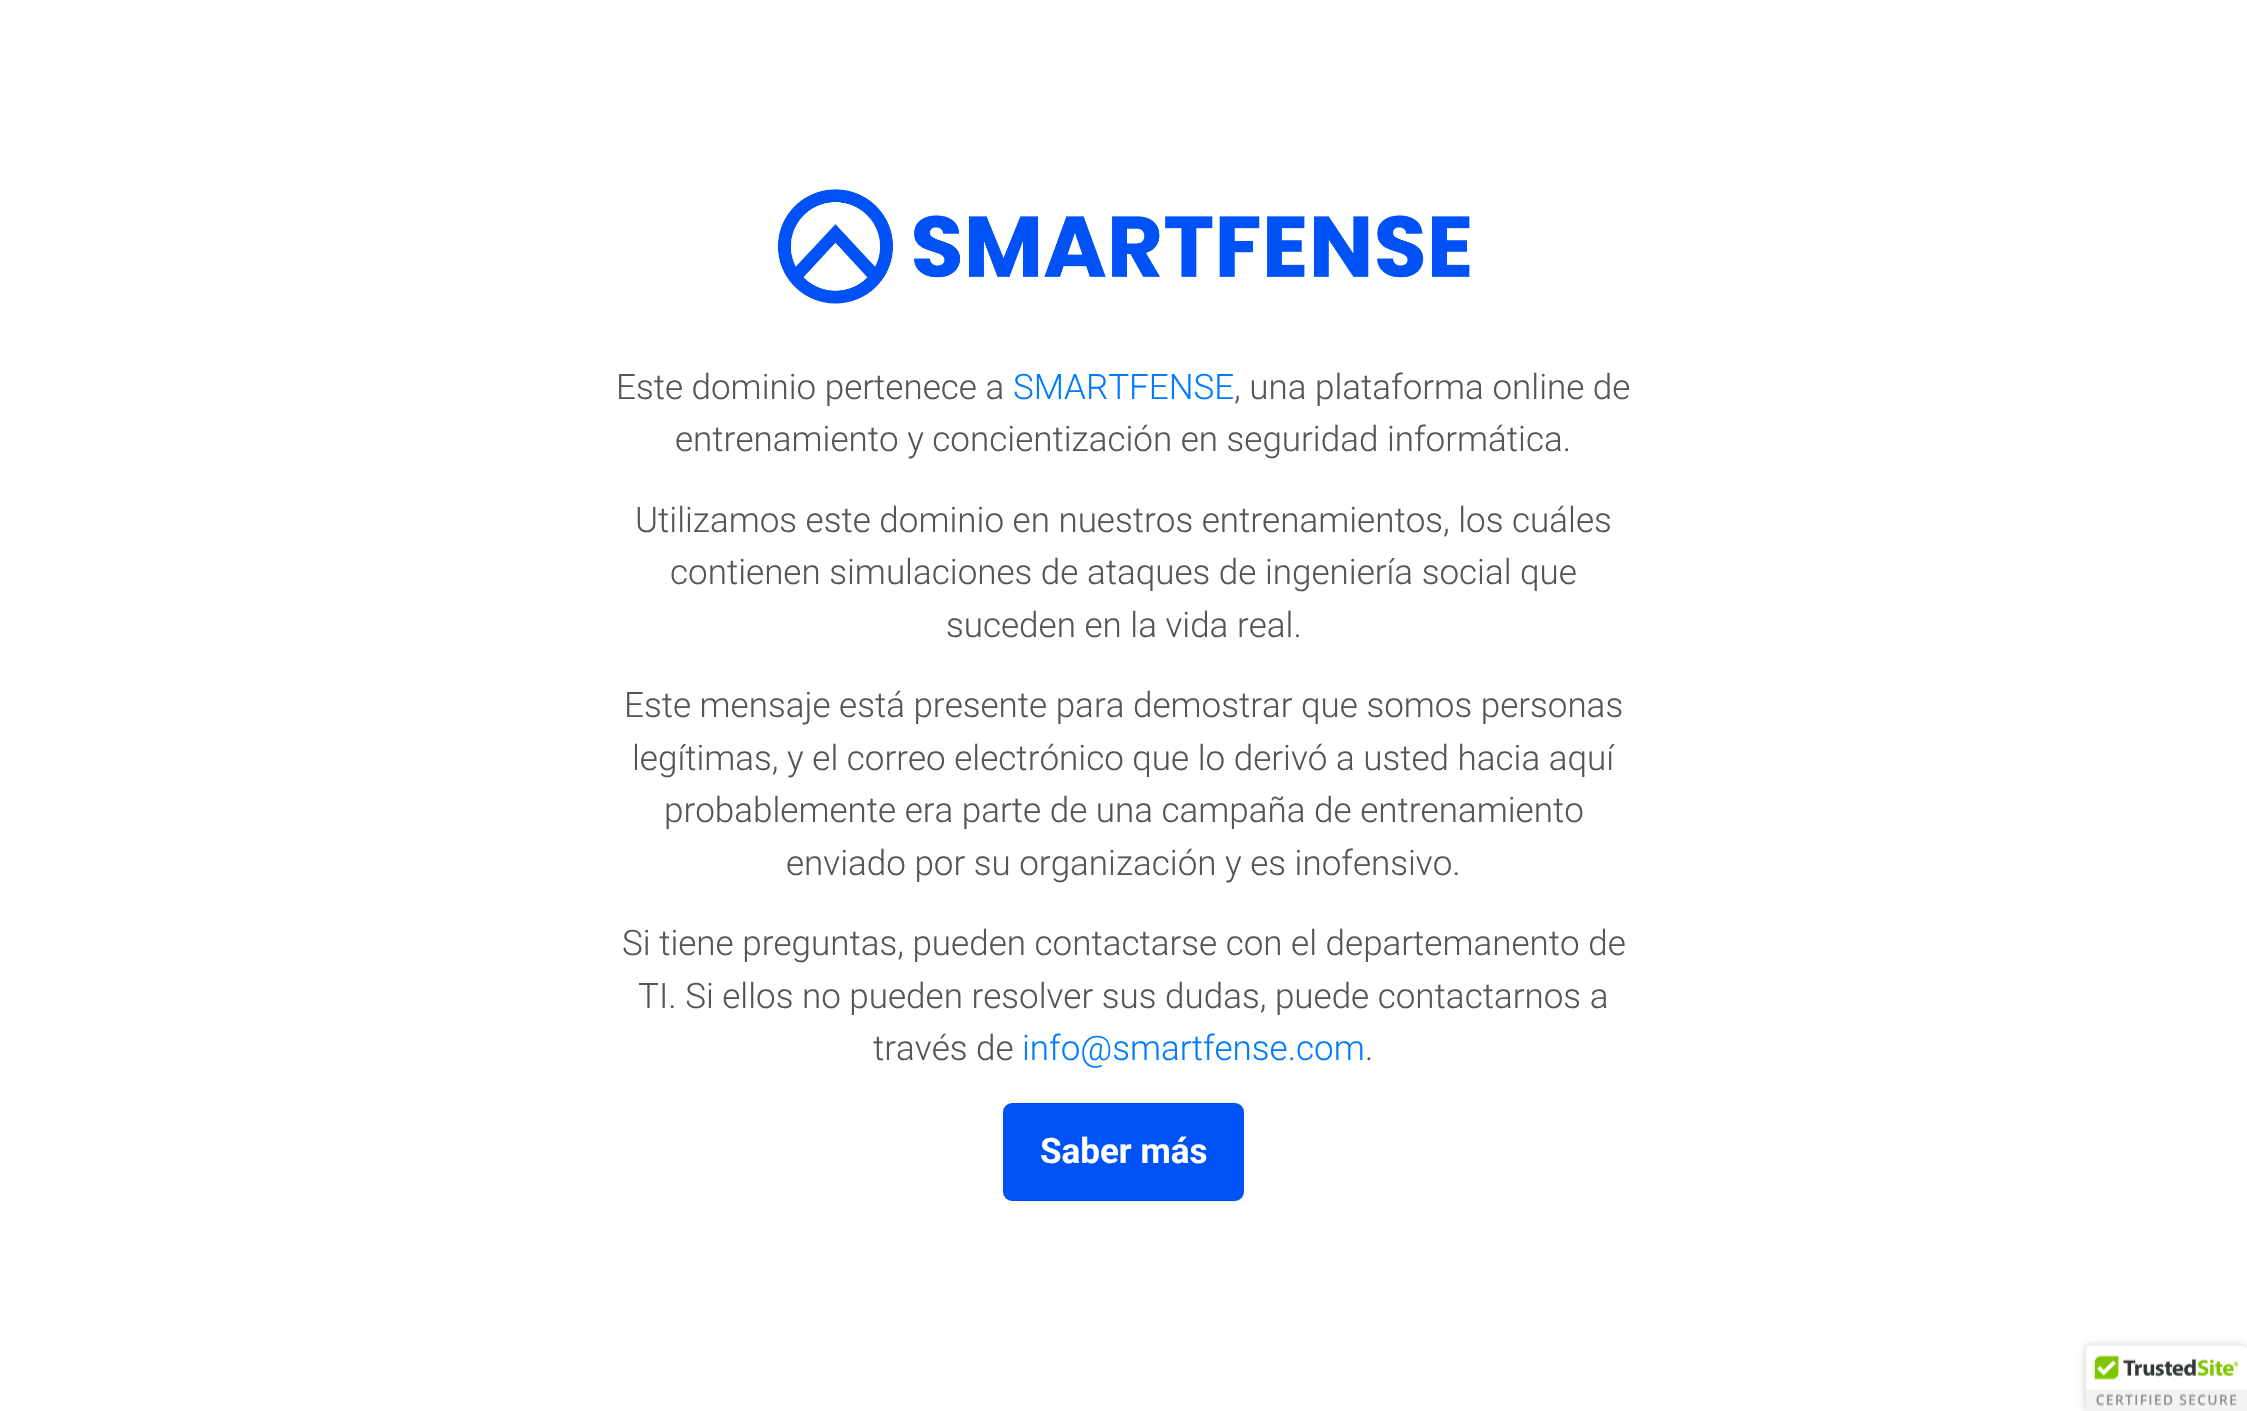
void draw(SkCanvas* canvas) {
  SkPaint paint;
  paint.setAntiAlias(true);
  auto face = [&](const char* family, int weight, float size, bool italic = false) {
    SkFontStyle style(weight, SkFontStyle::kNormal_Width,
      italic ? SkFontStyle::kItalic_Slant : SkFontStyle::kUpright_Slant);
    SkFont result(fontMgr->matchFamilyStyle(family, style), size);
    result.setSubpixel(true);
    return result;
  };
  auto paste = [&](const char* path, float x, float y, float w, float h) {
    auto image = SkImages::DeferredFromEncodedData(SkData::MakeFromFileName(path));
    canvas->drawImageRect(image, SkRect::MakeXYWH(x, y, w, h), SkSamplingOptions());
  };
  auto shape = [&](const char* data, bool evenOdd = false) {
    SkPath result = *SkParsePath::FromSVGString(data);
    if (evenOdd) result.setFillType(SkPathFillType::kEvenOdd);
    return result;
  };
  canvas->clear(0xffffffff);
  paste("img/1.png", 777, 189, 693, 115);
  paint.setColor(0xff0052f7);
  canvas->drawRoundRect(SkRect::MakeXYWH(1004, 1104, 239, 96), 8, 8, paint);
  paint.setStroke(true);
  paint.setStrokeWidth(2);
  canvas->drawRoundRect(SkRect::MakeXYWH(1004, 1104, 239, 96), 8, 8, paint);
  paint.setStroke(false);
  paint.setColor(0x33000000);
  paint.setMaskFilter(SkMaskFilter::MakeBlur(kNormal_SkBlurStyle, 4.5f));
  canvas->drawRoundRect(SkRect::MakeXYWH(2086, 1346, 161, 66), 4, 4, paint);
  paint.setMaskFilter(nullptr);
  paint.setColor(0xffffffff);
  canvas->drawPath(shape("M2090 1346H2247V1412H2086V1350C2086 1348 2088 1346 2090 1346Z"), paint);
  paste("img/2.png", 2086, 1345, 161, 66);
  auto f0 = face("Roboto", 300, 35);
  paint.setColor(0xff555555);
  canvas->drawString("Este dominio pertenece a", 616, 399, f0, paint);
  paint.setColor(0xff007bff);
  canvas->drawString("SMARTFENSE", 1013, 399, f0, paint);
  paint.setColor(0xff555555);
  {
    const struct { const char* s; float x, y; } items[] = {
      {", una plataforma online de", 1234, 399},
      {"entrenamiento y concientización en seguridad informática.", 675, 451},
      {"Utilizamos este dominio en nuestros entrenamientos, los cuáles", 635, 532},
      {"contienen simulaciones de ataques de ingeniería social que", 670, 584},
      {"suceden en la vida real.", 946, 637},
      {"Este mensaje está presente para demostrar que somos personas", 624, 717},
      {"legítimas, y el correo electrónico que lo derivó a usted hacia aquí", 632, 770},
      {"probablemente era parte de una campaña de entrenamiento", 664, 822},
      {"enviado por su organización y es inofensivo.", 786, 875},
      {"Si tiene preguntas, pueden contactarse con el departemanento de", 622, 955},
      {"TI. Si ellos no pueden resolver sus dudas, puede contactarnos a", 638, 1008},
      {"través de", 873, 1060},
    };
    for (auto [s, x, y] : items) {
      canvas->drawString(s, x, y, f0, paint);
    }
  }
  paint.setColor(0xff007bff);
  canvas->drawString("info@smartfense.com", 1022, 1060, f0, paint);
  paint.setColor(0xff555555);
  canvas->drawString(".", 1365, 1060, f0, paint);
  auto f1 = face("Roboto", 700, 35);
  paint.setColor(0xffffffff);
  canvas->drawString("Saber más", 1040, 1163, f1, paint);
}
